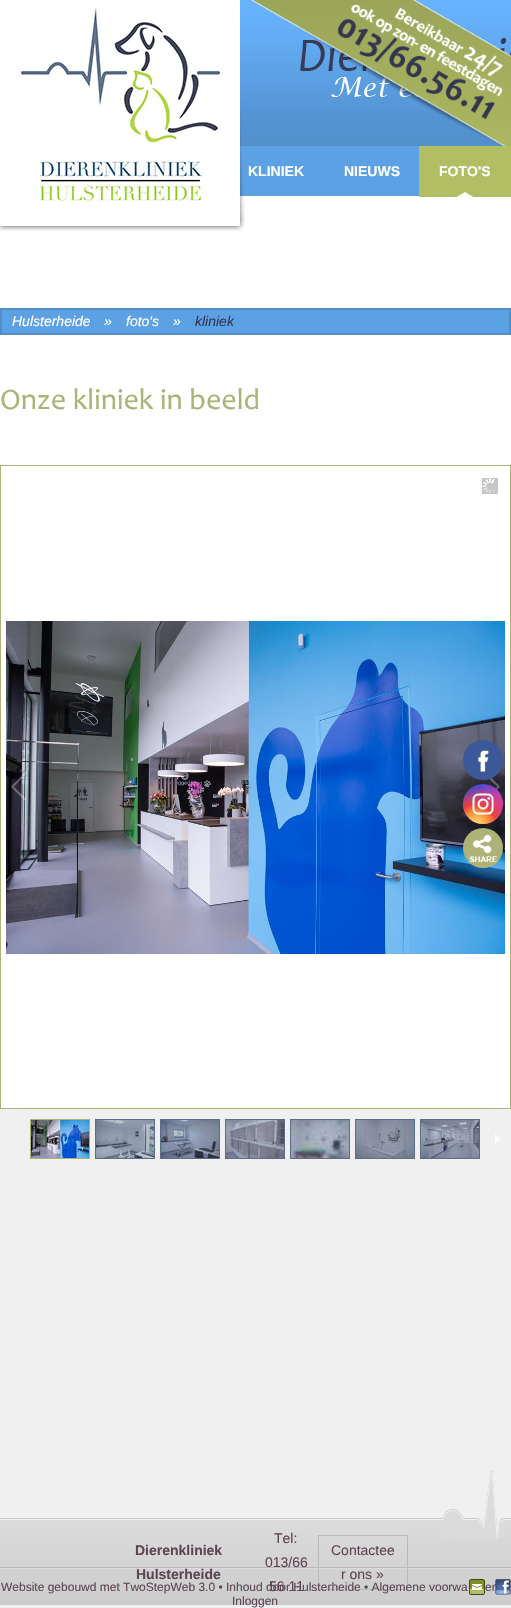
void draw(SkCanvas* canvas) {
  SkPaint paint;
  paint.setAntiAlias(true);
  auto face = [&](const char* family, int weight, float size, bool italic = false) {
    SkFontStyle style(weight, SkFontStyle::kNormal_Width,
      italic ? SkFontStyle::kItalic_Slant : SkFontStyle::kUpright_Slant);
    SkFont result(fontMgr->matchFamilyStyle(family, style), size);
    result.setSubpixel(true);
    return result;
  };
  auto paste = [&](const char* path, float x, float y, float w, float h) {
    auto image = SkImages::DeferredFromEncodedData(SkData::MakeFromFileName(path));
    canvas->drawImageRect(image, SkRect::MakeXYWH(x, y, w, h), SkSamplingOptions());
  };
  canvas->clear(0xfff0f0f0);
  paste("img/1.png", 0, 0, 511, 465);
  paste("img/2.png", 300, 38, 211, 59);
  paste("img/3.png", 0, 0, 245, 231);
  paint.setColor(0xffb2be63);
  canvas->drawRect(SkRect::MakeXYWH(419, 146, 92, 51), paint);
  paste("img/4.png", 457, 192, 16, 5);
  paint.setColor(0xff5da1e5);
  canvas->drawRect(SkRect::MakeXYWH(1, 309, 509, 25), paint);
  paint.setStroke(true);
  paint.setStrokeWidth(2);
  paint.setColor(0xff508dc9);
  canvas->drawRect(SkRect::MakeXYWH(1, 309, 509, 25), paint);
  paint.setStroke(false);
  paint.setColor(0xffffffff);
  canvas->drawRect(SkRect::MakeXYWH(0.5f, 465.5f, 510, 643), paint);
  paint.setStroke(true);
  paint.setStrokeWidth(1);
  paint.setColor(0xffadb376);
  canvas->drawRect(SkRect::MakeXYWH(0.5f, 465.5f, 510, 643), paint);
  paste("img/5.png", 482, 478, 16, 16);
  paste("img/6.png", 6, 621, 499, 333);
  paste("img/7.png", 11, 772, 16, 29);
  paste("img/8.png", 489, 777, 11, 13);
  canvas->drawRect(SkRect::MakeXYWH(30.5f, 1119.5f, 59, 39), paint);
  paste("img/9.png", 31, 1120, 58, 38);
  paint.setStroke(false);
  paint.setColor(0xff5a6e89);
  canvas->drawRect(SkRect::MakeXYWH(95, 1119, 60, 40), paint);
  paste("img/10.png", 96, 1120, 58, 38);
  canvas->drawRect(SkRect::MakeXYWH(160, 1119, 60, 40), paint);
  paste("img/11.png", 161, 1120, 58, 38);
  canvas->drawRect(SkRect::MakeXYWH(225, 1119, 60, 40), paint);
  paste("img/12.png", 226, 1120, 58, 38);
  canvas->drawRect(SkRect::MakeXYWH(290, 1119, 60, 40), paint);
  paste("img/13.png", 291, 1120, 58, 38);
  canvas->drawRect(SkRect::MakeXYWH(355, 1119, 60, 40), paint);
  paste("img/14.png", 356, 1120, 58, 38);
  canvas->drawRect(SkRect::MakeXYWH(420, 1119, 60, 40), paint);
  paste("img/15.png", 421, 1120, 58, 38);
  paste("img/16.png", 495, 1134, 5, 10);
  paste("img/17.png", 0, 1518, 511, 87);
  paste("img/18.png", 442, 1471, 62, 68);
  paint.setColor(0xff3b5998);
  canvas->drawCircle(483, 760, 20, paint);
  paste("img/19.png", 478, 750, 11, 22);
  {
    const SkColor colors[] = {0xff234bd7, 0xffc33cbe};
    const float stops[] = {0.12f, 0.58f};
    const SkPoint ends[] = {{463, 784}, {503, 824}};
    paint.setShader(SkGradientShader::MakeLinear(ends, colors, stops, 2, SkTileMode::kClamp));
    paint.setAlpha(255);
  }
  canvas->drawCircle(483, 804, 20, paint);
  {
    const SkColor colors[] = {0xffffe17d, 0xffffcd69, 0xfffa9137, 0xffeb4141, 0x00eb4141};
    const float stops[] = {0, 0.1f, 0.28f, 0.42f, 0.82f};
    paint.setShader(SkGradientShader::MakeRadial({476, 826}, 50, colors, stops, 5, SkTileMode::kClamp));
    paint.setAlpha(255);
  }
  canvas->drawCircle(483, 804, 20, paint);
  paste("img/20.png", 472, 793, 22, 22);
  paint.setShader(nullptr);
  paint.setColor(0xffadb376);
  canvas->drawCircle(483, 848, 20, paint);
  paste("img/21.png", 469, 834, 28, 29);
  paste("img/22.png", 251, 0, 260, 146);
  paint.setStroke(true);
  paint.setColor(0xffb9b9b9);
  canvas->drawRect(SkRect::MakeXYWH(318.5f, 1535.5f, 89, 54), paint);
  paste("img/23.png", 469, 1579, 16, 16);
  auto f0 = face("Liberation Sans", 700, 14);
  paint.setStroke(false);
  paint.setColor(0xffffffff);
  {
    const struct { const char* s; float x, y; } items[] = {
      {"KLINIEK", 248, 176},
      {"NIEUWS", 344, 176},
      {"FOTO'S", 439, 176},
    };
    for (auto [s, x, y] : items) {
      canvas->drawString(s, x, y, f0, paint);
    }
  }
  auto f1 = face("Liberation Sans", 400, 14, true);
  {
    const struct { const char* s; float x, y; } items[] = {
      {"Hulsterheide", 12, 326},
      {"»", 104, 326},
      {"foto's", 126, 326},
      {"»", 173, 326},
    };
    for (auto [s, x, y] : items) {
      canvas->drawString(s, x, y, f1, paint);
    }
  }
  paint.setColor(0xff343754);
  canvas->drawString("kliniek", 195, 326, f1, paint);
  auto f2 = face("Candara", 400, 30);
  paint.setColor(0xffadb376);
  canvas->drawString("Onze kliniek in beeld", 0, 409, f2, paint);
  paint.setColor(0xff5b4653);
  canvas->drawString("Dierenkliniek", 135, 1555, f0, paint);
  canvas->drawString("Hulsterheide", 136, 1579, f0, paint);
  auto f3 = face("Liberation Sans", 400, 14);
  {
    const struct { const char* s; float x, y; } items[] = {
      {"Tel:", 274, 1543},
      {"013/66", 265, 1567},
      {"56 11", 269, 1591},
      {"Contactee", 331, 1555},
      {"r ons »", 341, 1579},
    };
    for (auto [s, x, y] : items) {
      canvas->drawString(s, x, y, f3, paint);
    }
  }
  auto f4 = face("Liberation Sans", 400, 12);
  canvas->drawString("Website gebouwd met TwoStepWeb 3.0 • Inhoud door Hulsterheide • Algemene voorwa", 1, 1591, f4, paint);
  canvas->drawString("en", 485, 1591, f4, paint);
  paste("img/24.png", 495, 1579, 16, 16);
  canvas->drawString("Inloggen", 232, 1605, f4, paint);
}
